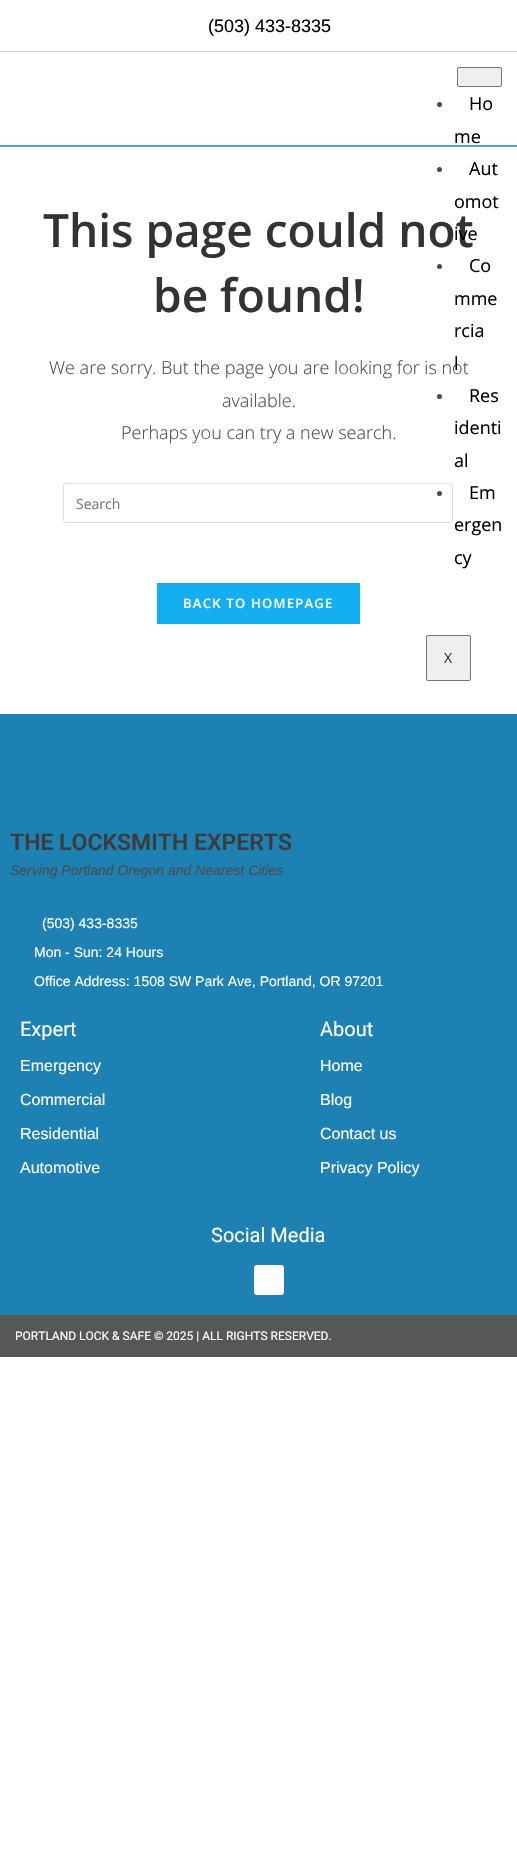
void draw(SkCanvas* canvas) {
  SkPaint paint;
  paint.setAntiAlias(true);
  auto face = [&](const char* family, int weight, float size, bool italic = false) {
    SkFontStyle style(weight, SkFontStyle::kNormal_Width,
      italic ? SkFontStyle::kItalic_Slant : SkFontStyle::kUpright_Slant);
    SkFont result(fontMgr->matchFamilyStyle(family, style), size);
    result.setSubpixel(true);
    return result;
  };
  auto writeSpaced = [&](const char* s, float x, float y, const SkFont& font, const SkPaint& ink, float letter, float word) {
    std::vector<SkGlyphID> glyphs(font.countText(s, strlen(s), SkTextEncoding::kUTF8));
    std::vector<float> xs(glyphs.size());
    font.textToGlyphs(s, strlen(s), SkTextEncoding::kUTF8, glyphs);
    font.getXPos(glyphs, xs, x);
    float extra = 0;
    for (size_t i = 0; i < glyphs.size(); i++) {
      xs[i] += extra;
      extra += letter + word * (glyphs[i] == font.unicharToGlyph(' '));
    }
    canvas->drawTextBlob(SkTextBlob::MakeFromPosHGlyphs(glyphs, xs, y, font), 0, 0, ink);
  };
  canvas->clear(0xffffffff);
  paint.setColor(0xffc9c9c9);
  canvas->drawRect(SkRect::MakeXYWH(0, 51, 517, 1), paint);
  paint.setColor(0xff55a0d1);
  canvas->drawRect(SkRect::MakeXYWH(0, 145, 517, 2), paint);
  paint.setColor(0xffefefef);
  canvas->drawRoundRect(SkRect::MakeXYWH(457.5f, 67.5f, 44, 19), 1.5f, 1.5f, paint);
  paint.setStroke(true);
  paint.setStrokeWidth(1);
  paint.setColor(0xff767676);
  canvas->drawRoundRect(SkRect::MakeXYWH(457.5f, 67.5f, 44, 19), 1.5f, 1.5f, paint);
  paint.setStroke(false);
  paint.setColor(0xff4a4a4a);
  canvas->drawCircle(439.5f, 104.5f, 2.5f, paint);
  canvas->drawCircle(439.5f, 169.5f, 2.5f, paint);
  canvas->drawCircle(439.5f, 266.5f, 2.5f, paint);
  canvas->drawCircle(439.5f, 396.5f, 2.5f, paint);
  paint.setStroke(true);
  paint.setColor(0xffdddddd);
  canvas->drawRoundRect(SkRect::MakeXYWH(63.5f, 483.5f, 389, 39), 2.5f, 2.5f, paint);
  paint.setStroke(false);
  paint.setColor(0xff4a4a4a);
  canvas->drawCircle(439.5f, 493.5f, 2.5f, paint);
  paint.setColor(0xffefefef);
  canvas->drawRoundRect(SkRect::MakeXYWH(426.5f, 635.5f, 44, 45), 1.5f, 1.5f, paint);
  paint.setStroke(true);
  paint.setColor(0xff767676);
  canvas->drawRoundRect(SkRect::MakeXYWH(426.5f, 635.5f, 44, 45), 1.5f, 1.5f, paint);
  paint.setStroke(false);
  paint.setColor(0xff13aff0);
  canvas->drawRect(SkRect::MakeXYWH(157, 583, 203, 41), paint);
  paint.setColor(0xff1d81b3);
  canvas->drawRect(SkRect::MakeXYWH(0, 714, 517, 601), paint);
  paint.setColor(0xffffffff);
  canvas->drawRoundRect(SkRect::MakeXYWH(254, 1265, 30, 30), 3, 3, paint);
  paint.setColor(0xff575757);
  canvas->drawRect(SkRect::MakeXYWH(0, 1315, 517, 42), paint);
  auto f0 = face("Liberation Sans", 400, 18);
  paint.setColor(0xff000000);
  canvas->drawString("(503) 433-8335", 208, 32, f0, paint);
  auto f1 = face("Open Sans", 400, 18);
  {
    const struct { const char* s; float x, y; } items[] = {
      {"Ho", 469, 110},
      {"me", 454, 143},
      {"Aut", 469, 175},
      {"omot", 454, 208},
      {"Co", 469, 272},
      {"mme", 454, 305},
      {"rcia", 454, 337},
      {"Res", 469, 402},
      {"identi", 454, 434},
      {"al", 454, 467},
      {"Em", 469, 499},
      {"ergen", 454, 531},
      {"cy", 454, 564},
    };
    for (auto [s, x, y] : items) {
      canvas->drawString(s, x, y, f1, paint);
    }
  }
  auto f2 = face("Open Sans", 400, 14);
  paint.setColor(0xff333333);
  canvas->drawString("X", 444, 663, f2, paint);
  auto f3 = face("Open Sans", 600, 46);
  canvas->drawString("This page could not", 43, 247, f3, paint);
  paint.setColor(0xff000000);
  canvas->drawString("ive", 454, 240, f1, paint);
  paint.setColor(0xff333333);
  canvas->drawString("be found!", 153, 312, f3, paint);
  auto f4 = face("Open Sans", 300, 18);
  paint.setColor(0xff4a4a4a);
  canvas->drawString("We are sorry. But the page you are looking for is not", 49, 374, f4, paint);
  paint.setColor(0xff000000);
  canvas->drawString("l", 454, 370, f1, paint);
  paint.setColor(0xff4a4a4a);
  canvas->drawString("available.", 222, 407, f4, paint);
  canvas->drawString("Perhaps you can try a new search.", 121, 439, f4, paint);
  paint.setColor(0xff757575);
  canvas->drawString("Search", 76, 509, f2, paint);
  auto f5 = face("Open Sans", 600, 13);
  paint.setColor(0xffffffff);
  writeSpaced("BACK TO HOMEPAGE", 183, 608, f5, paint, 1.25f, 0);
  auto f6 = face("Roboto", 600, 23);
  paint.setColor(0xff3c3c3c);
  canvas->drawString("THE LOCKSMITH EXPERTS", 10, 850, f6, paint);
  auto f7 = face("Liberation Sans", 400, 14, true);
  paint.setColor(0xff4a4a4a);
  canvas->drawString("Serving Portland Oregon and Nearest Cities", 10, 875, f7, paint);
  auto f8 = face("Liberation Sans", 400, 14);
  paint.setColor(0xffffffff);
  {
    const struct { const char* s; float x, y; } items[] = {
      {"(503) 433-8335", 42, 928},
      {"Mon - Sun: 24 Hours", 34, 957},
      {"Office Address: 1508 SW Park Ave, Portland, OR 97201", 34, 986},
    };
    for (auto [s, x, y] : items) {
      canvas->drawString(s, x, y, f8, paint);
    }
  }
  auto f9 = face("Roboto", 400, 20);
  canvas->drawString("Expert", 20, 1036, f9, paint);
  auto f10 = face("Liberation Sans", 400, 16);
  {
    const struct { const char* s; float x, y; } items[] = {
      {"Emergency", 20, 1071},
      {"Commercial", 20, 1105},
      {"Residential", 20, 1139},
      {"Automotive", 20, 1173},
    };
    for (auto [s, x, y] : items) {
      canvas->drawString(s, x, y, f10, paint);
    }
  }
  canvas->drawString("About", 320, 1036, f9, paint);
  {
    const struct { const char* s; float x, y; } items[] = {
      {"Home", 320, 1071},
      {"Blog", 320, 1105},
      {"Contact us", 320, 1139},
      {"Privacy Policy", 320, 1173},
    };
    for (auto [s, x, y] : items) {
      canvas->drawString(s, x, y, f10, paint);
    }
  }
  canvas->drawString("Social Media", 211, 1242, f9, paint);
  auto f11 = face("Roboto", 400, 12);
  canvas->drawString("PORTLAND LOCK & SAFE © 2025 | ALL RIGHTS RESERVED.", 15, 1340, f11, paint);
}
